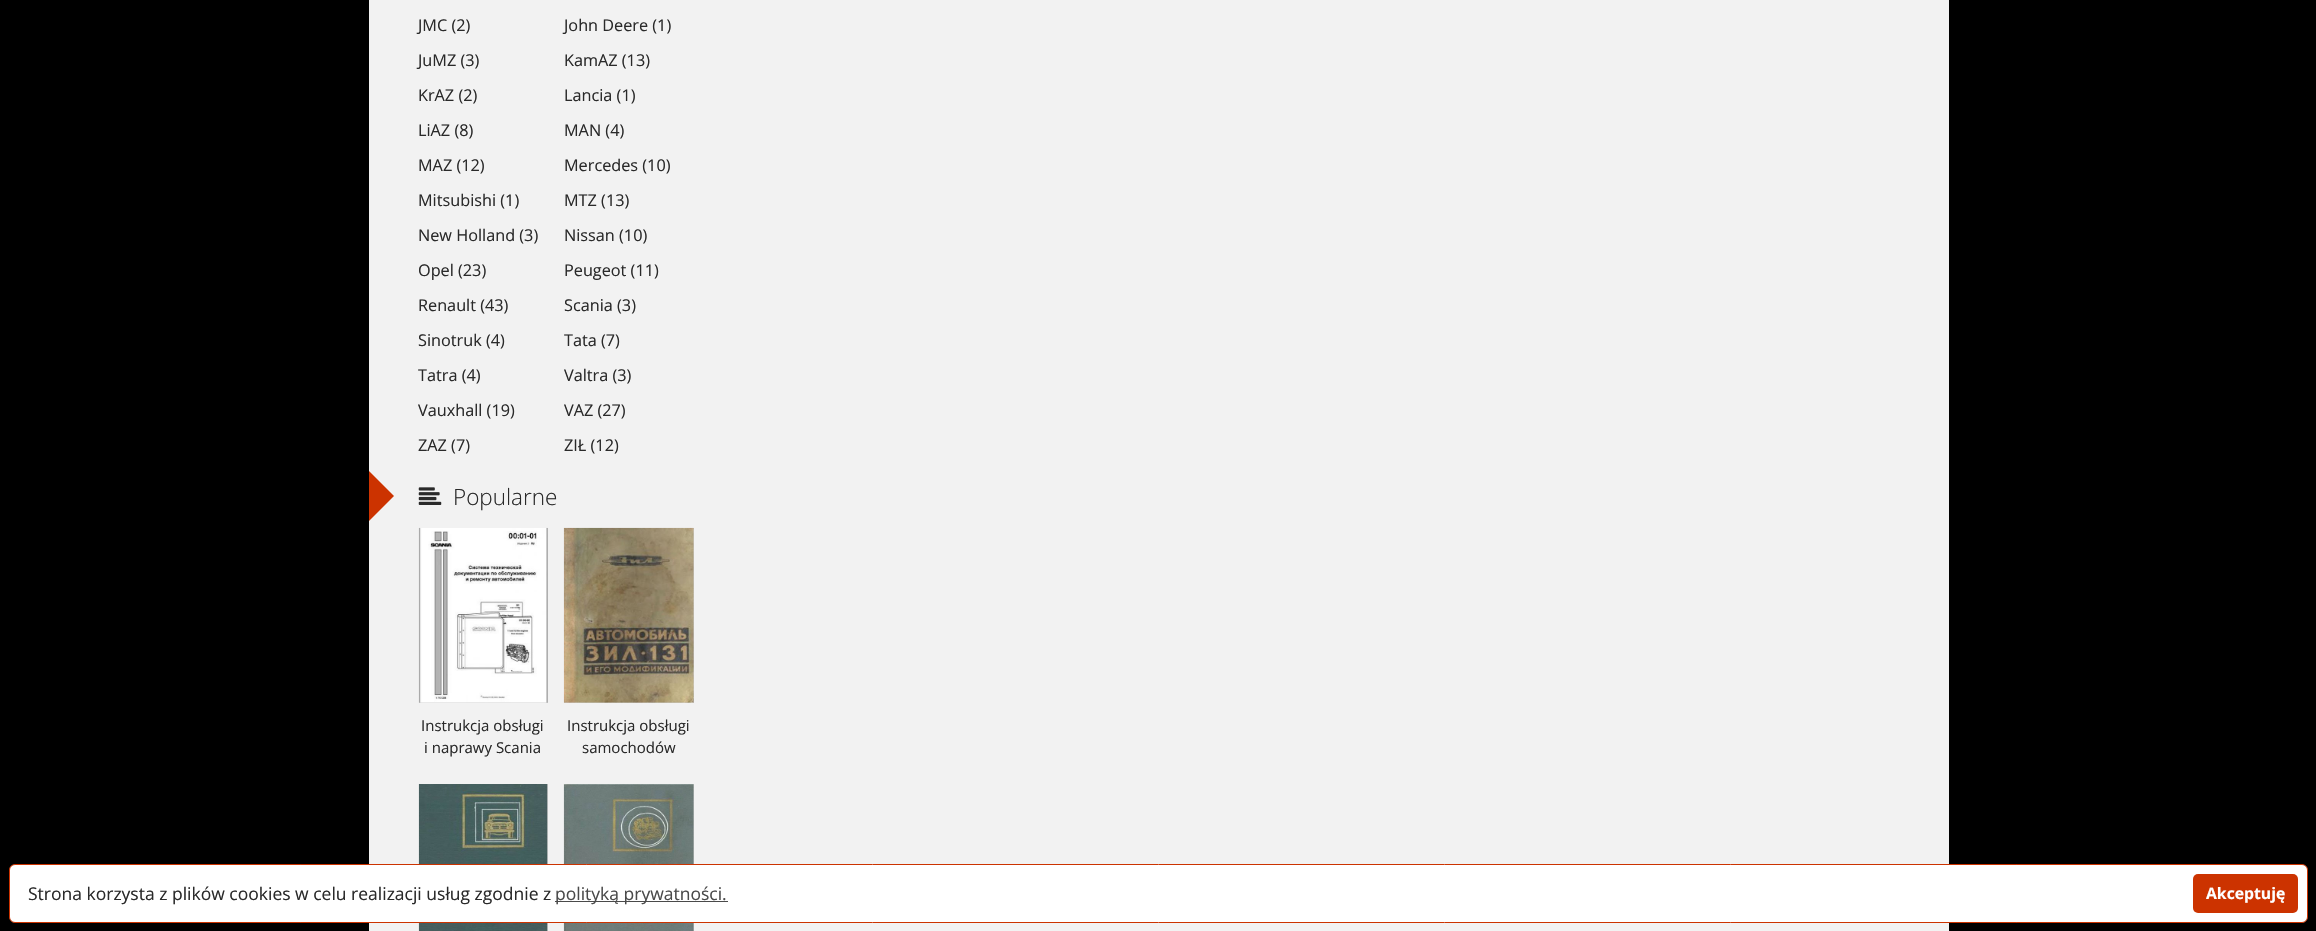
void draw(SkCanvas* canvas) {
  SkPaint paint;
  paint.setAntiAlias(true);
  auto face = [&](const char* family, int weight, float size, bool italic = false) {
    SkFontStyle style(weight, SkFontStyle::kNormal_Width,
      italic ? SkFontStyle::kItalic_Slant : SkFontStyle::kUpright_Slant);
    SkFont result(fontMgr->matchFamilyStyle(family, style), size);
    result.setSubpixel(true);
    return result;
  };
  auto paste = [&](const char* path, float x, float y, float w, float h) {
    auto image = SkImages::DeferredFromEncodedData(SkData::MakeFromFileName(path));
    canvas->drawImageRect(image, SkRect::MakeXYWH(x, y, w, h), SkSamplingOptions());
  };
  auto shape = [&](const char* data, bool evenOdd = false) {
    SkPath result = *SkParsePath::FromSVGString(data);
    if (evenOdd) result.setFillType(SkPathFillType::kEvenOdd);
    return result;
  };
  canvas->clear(0xff000000);
  paint.setColor(0xfff2f2f2);
  canvas->drawRect(SkRect::MakeXYWH(369, 0, 1580, 931), paint);
  paint.setColor(0xffcc3300);
  canvas->drawPath(shape("M369 521V471L394 496Z"), paint);
  paste("img/1.png", 418, 487, 24, 18);
  paint.setColor(0xffcccccc);
  canvas->drawRect(SkRect::MakeXYWH(419, 528, 129, 175), paint);
  paste("img/2.png", 418, 527, 130, 176);
  canvas->drawRect(SkRect::MakeXYWH(564, 528, 130, 175), paint);
  paste("img/3.png", 563, 527, 131, 176);
  canvas->drawRect(SkRect::MakeXYWH(547, 784, 1, 147), paint);
  paste("img/4.png", 418, 784, 130, 147);
  canvas->drawRect(SkRect::MakeXYWH(693, 784, 1, 147), paint);
  paste("img/5.png", 563, 784, 131, 147);
  paint.setColor(0xffffffff);
  canvas->drawRoundRect(SkRect::MakeXYWH(9.5f, 864.5f, 2298, 58), 5.5f, 5.5f, paint);
  paint.setStroke(true);
  paint.setStrokeWidth(1);
  paint.setColor(0xffcc3300);
  canvas->drawRoundRect(SkRect::MakeXYWH(9.5f, 864.5f, 2298, 58), 5.5f, 5.5f, paint);
  paint.setStroke(false);
  paint.setColor(0xff4a4a4a);
  canvas->drawRect(SkRect::MakeXYWH(555, 901, 173, 1), paint);
  paint.setColor(0xffcc3300);
  canvas->drawRoundRect(SkRect::MakeXYWH(2193, 874, 105, 39), 5, 5, paint);
  auto f0 = face("Open Sans", 400, 16.25f);
  paint.setColor(0xff2a2a2a);
  {
    const struct { const char* s; float x, y; } items[] = {
      {"JMC (2)", 418, 31},
      {"John Deere (1)", 564, 31},
      {"JuMZ (3)", 418, 66},
      {"KamAZ (13)", 564, 66},
      {"KrAZ (2)", 418, 101},
      {"Lancia (1)", 564, 101},
      {"LiAZ (8)", 418, 136},
      {"MAN (4)", 564, 136},
      {"MAZ (12)", 418, 171},
      {"Mercedes (10)", 564, 171},
      {"Mitsubishi (1)", 418, 206},
      {"MTZ (13)", 564, 206},
      {"New Holland (3)", 418, 241},
      {"Nissan (10)", 564, 241},
      {"Opel (23)", 418, 276},
      {"Peugeot (11)", 564, 276},
      {"Renault (43)", 418, 311},
      {"Scania (3)", 564, 311},
      {"Sinotruk (4)", 418, 346},
      {"Tata (7)", 564, 346},
      {"Tatra (4)", 418, 381},
      {"Valtra (3)", 564, 381},
      {"Vauxhall (19)", 418, 416},
      {"VAZ (27)", 564, 416},
      {"ZAZ (7)", 418, 451},
      {"ZIŁ (12)", 564, 451},
    };
    for (auto [s, x, y] : items) {
      canvas->drawString(s, x, y, f0, paint);
    }
  }
  auto f1 = face("Open Sans", 300, 22.5f);
  canvas->drawString("Popularne", 453, 505, f1, paint);
  auto f2 = face("Open Sans", 400, 15);
  {
    const struct { const char* s; float x, y; } items[] = {
      {"Instrukcja obsługi", 421, 731},
      {"i naprawy Scania", 424, 753},
      {"Instrukcja obsługi", 567, 731},
      {"samochodów", 582, 753},
    };
    for (auto [s, x, y] : items) {
      canvas->drawString(s, x, y, f2, paint);
    }
  }
  auto f3 = face("Open Sans", 400, 17.5f);
  canvas->drawString("Strona korzysta z plików cookies w celu realizacji usług zgodnie z", 28, 900, f3, paint);
  paint.setColor(0xff4a4a4a);
  canvas->drawString("polityką prywatności.", 555, 900, f3, paint);
  auto f4 = face("Open Sans", 700, 15.75f);
  paint.setColor(0xffffffff);
  canvas->drawString("Akceptuję", 2206, 899, f4, paint);
}
